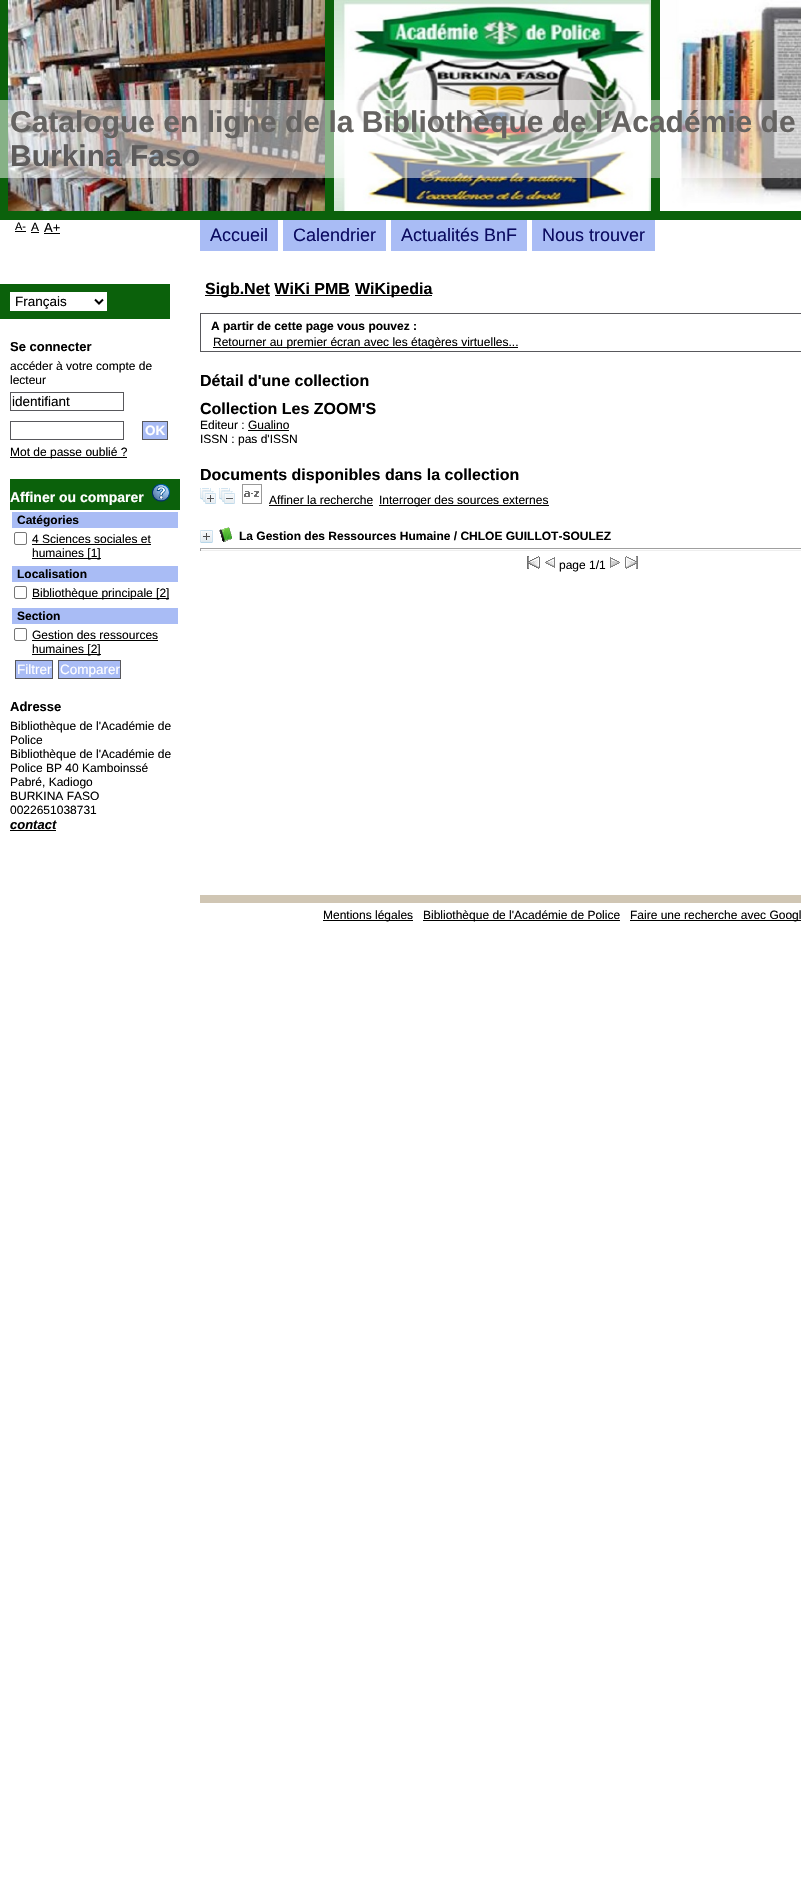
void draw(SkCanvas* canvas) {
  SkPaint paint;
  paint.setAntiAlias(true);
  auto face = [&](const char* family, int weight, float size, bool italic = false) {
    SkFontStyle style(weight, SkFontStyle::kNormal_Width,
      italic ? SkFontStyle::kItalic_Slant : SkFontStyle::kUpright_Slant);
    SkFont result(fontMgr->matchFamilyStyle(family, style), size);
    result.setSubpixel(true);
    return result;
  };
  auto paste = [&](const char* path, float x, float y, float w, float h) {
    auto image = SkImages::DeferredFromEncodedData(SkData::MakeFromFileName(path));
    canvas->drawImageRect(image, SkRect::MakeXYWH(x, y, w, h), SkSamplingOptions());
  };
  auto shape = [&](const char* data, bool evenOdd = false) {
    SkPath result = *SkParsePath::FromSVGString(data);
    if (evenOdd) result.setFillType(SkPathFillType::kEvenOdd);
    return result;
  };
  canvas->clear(0xffffffff);
  paint.setColor(0xff0b610b);
  canvas->drawRect(SkRect::MakeXYWH(0, 0, 801, 220), paint);
  paste("img/11.png", 8, 0, 317, 211);
  paste("img/12.png", 334, 0, 317, 211);
  paste("img/13.png", 660, 0, 141, 211);
  {
    const struct { float x, y, w, h; SkColor color; } items[] = {
      {0, 100, 801, 78, 0x80ffffff},
      {205, 295, 65, 1, 0xff000000},
      {355, 295, 77, 1, 0xff000000},
      {275, 295, 75, 1, 0xff000000},
    };
    for (auto [x, y, w, h, color] : items) {
      paint.setColor(color);
      canvas->drawRect(SkRect::MakeXYWH(x, y, w, h), paint);
    }
  }
  paint.setStroke(true);
  paint.setStrokeWidth(1);
  paint.setColor(0xff58585c);
  canvas->drawRect(SkRect::MakeXYWH(200.5f, 313.5f, 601, 38), paint);
  paint.setStroke(false);
  paint.setColor(0xff000000);
  canvas->drawRect(SkRect::MakeXYWH(213, 347, 305, 1), paint);
  canvas->drawRect(SkRect::MakeXYWH(248, 430, 41, 1), paint);
  paste("img/1.png", 200, 488, 16, 16);
  paste("img/2.png", 219, 488, 16, 16);
  paste("img/3.png", 242, 484, 20, 20);
  canvas->drawRect(SkRect::MakeXYWH(269, 505, 104, 1), paint);
  canvas->drawRect(SkRect::MakeXYWH(379, 505, 170, 1), paint);
  paste("img/4.png", 200, 530, 13, 13);
  paste("img/5.png", 219, 527, 13, 15);
  {
    const struct { float x, y, w, h; SkColor color; } items[] = {
      {200, 548, 601, 1, 0xff9f9f9f},
      {200, 550, 601, 1, 0xffeeeeee},
      {200, 548, 1, 3, 0xff9f9f9f},
    };
    for (auto [x, y, w, h, color] : items) {
      paint.setColor(color);
      canvas->drawRect(SkRect::MakeXYWH(x, y, w, h), paint);
    }
  }
  paste("img/6.png", 527, 556, 13, 13);
  paste("img/7.png", 545, 557, 10, 11);
  paste("img/8.png", 610, 557, 10, 11);
  paste("img/9.png", 625, 556, 13, 13);
  {
    const struct { float x, y, w, h; SkColor color; } items[] = {
      {200, 895, 601, 8, 0xffd0c6b4},
      {323, 920, 90, 1, 0xff000000},
      {423, 920, 197, 1, 0xff000000},
      {630, 920, 171, 1, 0xff000000},
      {15, 231, 11, 1, 0xff000000},
      {31, 232, 8, 1, 0xff000000},
      {44, 233, 16, 1, 0xff000000},
      {0, 284, 170, 35, 0xff0b610b},
      {10, 292, 97, 19, 0xffffffff},
    };
    for (auto [x, y, w, h, color] : items) {
      paint.setColor(color);
      canvas->drawRect(SkRect::MakeXYWH(x, y, w, h), paint);
    }
  }
  paint.setStroke(true);
  paint.setStrokeWidth(2);
  paint.setColor(0xff000000);
  canvas->drawPath(shape("M95 299.5L99 303.5L103 299.5"), paint);
  paint.setStrokeWidth(1);
  paint.setColor(0xff58585c);
  canvas->drawRect(SkRect::MakeXYWH(10.5f, 392.5f, 113, 18), paint);
  canvas->drawRect(SkRect::MakeXYWH(10.5f, 421.5f, 113, 18), paint);
  paint.setStroke(false);
  paint.setColor(0xffa9bcf5);
  canvas->drawRect(SkRect::MakeXYWH(142.5f, 421.5f, 25, 18), paint);
  paint.setStroke(true);
  paint.setColor(0xff58585c);
  canvas->drawRect(SkRect::MakeXYWH(142.5f, 421.5f, 25, 18), paint);
  paint.setStroke(false);
  paint.setColor(0xff000000);
  canvas->drawRect(SkRect::MakeXYWH(10, 457, 117, 1), paint);
  paint.setColor(0xff0b610b);
  canvas->drawRect(SkRect::MakeXYWH(10, 479, 170, 31), paint);
  paste("img/10.png", 152, 484, 18, 18);
  paint.setColor(0xffa9bcf5);
  canvas->drawRect(SkRect::MakeXYWH(12, 512, 166, 16), paint);
  paint.setStroke(true);
  paint.setColor(0xff767676);
  canvas->drawRoundRect(SkRect::MakeXYWH(14.5f, 532.5f, 12, 12), 1.5f, 1.5f, paint);
  paint.setStroke(false);
  {
    const struct { float x, y, w, h; SkColor color; } items[] = {
      {32, 544, 119, 1, 0xff000000},
      {32, 558, 69, 1, 0xff000000},
      {12, 566, 166, 16, 0xffa9bcf5},
    };
    for (auto [x, y, w, h, color] : items) {
      paint.setColor(color);
      canvas->drawRect(SkRect::MakeXYWH(x, y, w, h), paint);
    }
  }
  paint.setStroke(true);
  paint.setColor(0xff767676);
  canvas->drawRoundRect(SkRect::MakeXYWH(14.5f, 586.5f, 12, 12), 1.5f, 1.5f, paint);
  paint.setStroke(false);
  paint.setColor(0xff000000);
  canvas->drawRect(SkRect::MakeXYWH(32, 598, 137, 1), paint);
  paint.setColor(0xffa9bcf5);
  canvas->drawRect(SkRect::MakeXYWH(12, 608, 166, 16), paint);
  paint.setStroke(true);
  paint.setColor(0xff767676);
  canvas->drawRoundRect(SkRect::MakeXYWH(14.5f, 628.5f, 12, 12), 1.5f, 1.5f, paint);
  paint.setStroke(false);
  paint.setColor(0xff000000);
  canvas->drawRect(SkRect::MakeXYWH(32, 640, 126, 1), paint);
  canvas->drawRect(SkRect::MakeXYWH(32, 654, 69, 1), paint);
  paint.setColor(0xffa9bcf5);
  canvas->drawRect(SkRect::MakeXYWH(15.5f, 660.5f, 37, 18), paint);
  paint.setStroke(true);
  paint.setColor(0xff58585c);
  canvas->drawRect(SkRect::MakeXYWH(15.5f, 660.5f, 37, 18), paint);
  paint.setStroke(false);
  paint.setColor(0xffa9bcf5);
  canvas->drawRect(SkRect::MakeXYWH(58.5f, 660.5f, 62, 18), paint);
  paint.setStroke(true);
  paint.setColor(0xff58585c);
  canvas->drawRect(SkRect::MakeXYWH(58.5f, 660.5f, 62, 18), paint);
  paint.setStroke(false);
  {
    const struct { float x, y, w, h; SkColor color; } items[] = {
      {10, 830, 46, 1, 0xff000000},
      {200, 220, 78, 31, 0xffa9bcf5},
      {283, 220, 103, 31, 0xffa9bcf5},
      {391, 220, 136, 31, 0xffa9bcf5},
      {532, 220, 123, 31, 0xffa9bcf5},
    };
    for (auto [x, y, w, h, color] : items) {
      paint.setColor(color);
      canvas->drawRect(SkRect::MakeXYWH(x, y, w, h), paint);
    }
  }
  auto f0 = face("Liberation Sans", 700, 30);
  paint.setColor(0xff656361);
  canvas->drawString("Catalogue en ligne de la Bibliothèque de l'Académie de", 10, 132, f0, paint);
  paint.setColor(0xff5d5b5b);
  canvas->drawString("Burkina Faso", 10, 166, f0, paint);
  auto f1 = face("Liberation Sans", 700, 16);
  paint.setColor(0xff000000);
  canvas->drawString("Sigb.Net WiKi PMB", 205, 294, f1, paint);
  canvas->drawString("WiKipedia", 355, 294, f1, paint);
  auto f2 = face("Liberation Sans", 700, 12);
  canvas->drawString("A partir de cette page vous pouvez :", 211, 330, f2, paint);
  auto f3 = face("Liberation Sans", 400, 12);
  canvas->drawString("Retourner au premier écran avec les étagères virtuelles...", 213, 346, f3, paint);
  canvas->drawString("Détail d'une collection", 200, 386, f1, paint);
  canvas->drawString("Collection Les ZOOM'S", 200, 414, f1, paint);
  canvas->drawString("Editeur : Gualino", 200, 429, f3, paint);
  canvas->drawString("ISSN : pas d'ISSN", 200, 443, f3, paint);
  canvas->drawString("Documents disponibles dans la collection", 200, 480, f1, paint);
  canvas->drawString("Affiner la recherche", 269, 504, f3, paint);
  canvas->drawString("Interroger des sources externes", 379, 504, f3, paint);
  canvas->drawString("La Gestion des Ressources Humaine / CHLOE GUILLOT-SOULEZ", 239, 540, f2, paint);
  {
    const struct { const char* s; float x, y; } items[] = {
      {"page 1/1", 559, 569},
      {"Mentions légales", 323, 919},
      {"Bibliothèque de l'Académie de Police", 423, 919},
      {"Faire une recherche avec Googl", 630, 919},
    };
    for (auto [s, x, y] : items) {
      canvas->drawString(s, x, y, f3, paint);
    }
  }
  auto f4 = face("Liberation Sans", 400, 11);
  canvas->drawString("A-", 15, 230, f4, paint);
  canvas->drawString("A", 31, 231, f3, paint);
  auto f5 = face("Liberation Sans", 400, 13);
  canvas->drawString("A+", 44, 232, f5, paint);
  auto f6 = face("Liberation Sans", 400, 13.5f);
  canvas->drawString("Français", 15, 306, f6, paint);
  auto f7 = face("Liberation Sans", 700, 13);
  canvas->drawString("Se connecter", 10, 351, f7, paint);
  canvas->drawString("accéder à votre compte de", 10, 370, f3, paint);
  canvas->drawString("lecteur", 10, 384, f3, paint);
  canvas->drawString("identifiant", 12, 406, f6, paint);
  auto f8 = face("Liberation Sans", 700, 13.5f);
  paint.setColor(0xffffffff);
  canvas->drawString("OK", 145, 435, f8, paint);
  paint.setColor(0xff000000);
  canvas->drawString("Mot de passe oublié ?", 10, 456, f3, paint);
  auto f9 = face("Liberation Sans", 700, 14);
  paint.setColor(0xffffffff);
  canvas->drawString("Affiner ou comparer", 10, 502, f9, paint);
  paint.setColor(0xff000000);
  canvas->drawString("Catégories", 17, 524, f2, paint);
  canvas->drawString("4 Sciences sociales et", 32, 543, f3, paint);
  canvas->drawString("humaines [1]", 32, 557, f3, paint);
  canvas->drawString("Localisation", 17, 578, f2, paint);
  canvas->drawString("Bibliothèque principale [2]", 32, 597, f3, paint);
  canvas->drawString("Section", 17, 620, f2, paint);
  canvas->drawString("Gestion des ressources", 32, 639, f3, paint);
  canvas->drawString("humaines [2]", 32, 653, f3, paint);
  paint.setColor(0xffffffff);
  canvas->drawString("Filtrer", 17, 674, f6, paint);
  canvas->drawString("Comparer", 60, 674, f6, paint);
  paint.setColor(0xff000000);
  canvas->drawString("Adresse", 10, 711, f7, paint);
  {
    const struct { const char* s; float x, y; } items[] = {
      {"Bibliothèque de l'Académie de", 10, 730},
      {"Police", 10, 744},
      {"Bibliothèque de l'Académie de", 10, 758},
      {"Police BP 40 Kamboinssé", 10, 772},
      {"Pabré, Kadiogo", 10, 786},
      {"BURKINA FASO", 10, 800},
      {"0022651038731", 10, 814},
    };
    for (auto [s, x, y] : items) {
      canvas->drawString(s, x, y, f3, paint);
    }
  }
  auto f10 = face("Liberation Sans", 700, 13, true);
  canvas->drawString("contact", 10, 829, f10, paint);
  auto f11 = face("Liberation Sans", 400, 18);
  paint.setColor(0xff0b0b61);
  {
    const struct { const char* s; float x, y; } items[] = {
      {"Accueil", 210, 241},
      {"Calendrier", 293, 241},
      {"Actualités BnF", 401, 241},
      {"Nous trouver", 542, 241},
    };
    for (auto [s, x, y] : items) {
      canvas->drawString(s, x, y, f11, paint);
    }
  }
}
